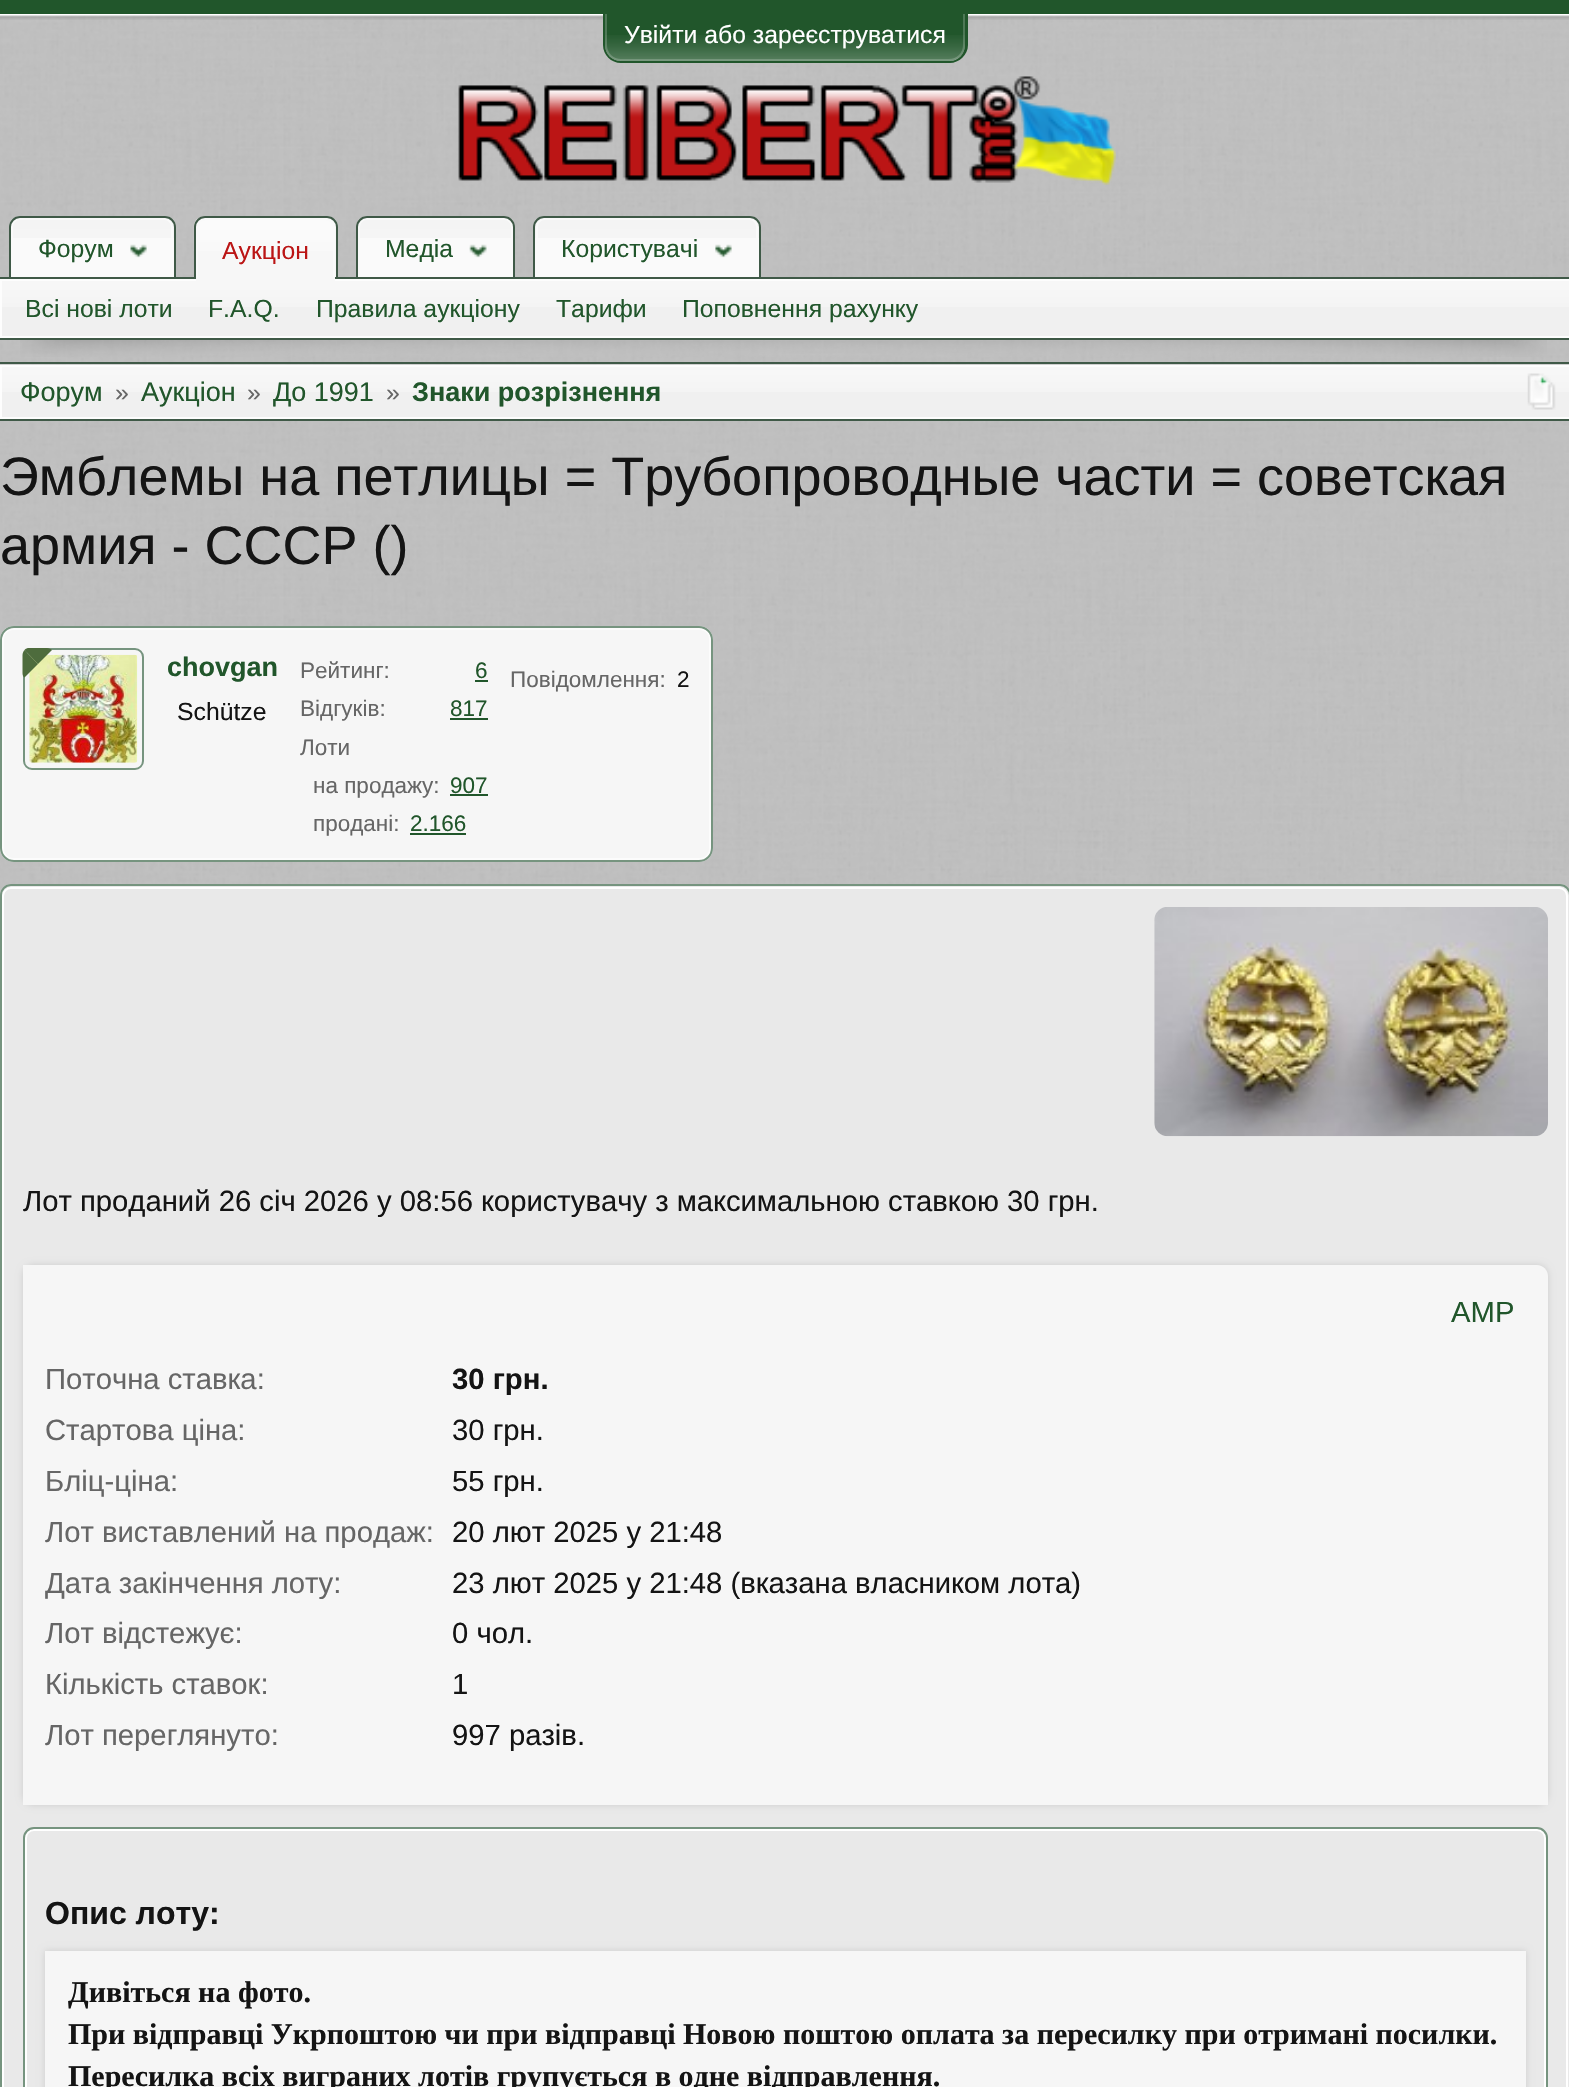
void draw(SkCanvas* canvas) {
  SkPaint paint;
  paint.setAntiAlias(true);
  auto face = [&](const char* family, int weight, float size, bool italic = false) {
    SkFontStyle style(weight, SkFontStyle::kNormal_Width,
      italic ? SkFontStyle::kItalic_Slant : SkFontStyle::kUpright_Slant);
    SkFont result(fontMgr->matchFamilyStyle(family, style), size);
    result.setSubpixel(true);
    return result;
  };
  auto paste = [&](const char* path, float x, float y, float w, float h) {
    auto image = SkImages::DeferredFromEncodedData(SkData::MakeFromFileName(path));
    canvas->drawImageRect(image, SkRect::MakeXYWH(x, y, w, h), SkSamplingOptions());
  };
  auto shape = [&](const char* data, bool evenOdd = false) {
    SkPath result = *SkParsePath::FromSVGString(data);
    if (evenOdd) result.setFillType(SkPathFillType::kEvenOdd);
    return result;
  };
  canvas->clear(0xffc0c0c0);
  paint.setColor(0xff21562b);
  canvas->drawRect(SkRect::MakeXYWH(0, 0, 1569, 14), paint);
  paste("img/2.png", 0, 15, 1569, 880);
  paste("img/3.png", 0, 14, 1569, 6);
  canvas->drawPath(shape("M605 14H965V45C965 54 958 61 949 61H621C612 61 605 54 605 45Z"), paint);
  paste("img/1.png", 603, 35, 364, 28);
  canvas->save();
  canvas->clipRect(SkRect::MakeXYWH(603, 14, 365, 54));
  paint.setStroke(true);
  paint.setStrokeWidth(2);
  paint.setColor(0x33ffffff);
  canvas->drawPath(shape("M606 6H964V45C964 53.5 957.5 60 949 60H621C612.5 60 606 53.5 606 45Z"), paint);
  paint.setStroke(false);
  paint.setColor(0xff21562b);
  canvas->drawPath(shape("M603 4H968V45C968 55 959 63 950 63H621C611 63 603 55 603 45ZM605 4H965V45C965 54 958 61 950 61H621C612 61 605 54 605 45Z", true), paint);
  canvas->restore();
  paste("img/4.png", 458, 76, 658, 109);
  paint.setColor(0xfffafafa);
  canvas->drawPath(shape("M20 216H165C171 216 176 221 176 227V281H9V227C9 221 14 216 20 216Z"), paint);
  paste("img/5.png", 9, 219, 165, 19);
  paint.setStroke(true);
  canvas->drawPath(shape("M20 219H164C168.5 219 172 222.5 172 227V278H12V227C12 222.5 15.5 219 20 219Z"), paint);
  paint.setColor(0xff3f5947);
  canvas->drawPath(shape("M20 217H165C170.5 217 175 221.5 175 227V280H10V227C10 221.5 14.5 217 20 217Z"), paint);
  paste("img/6.png", 130, 244, 17, 14);
  paint.setStroke(false);
  paint.setColor(0xfff7f7f7);
  canvas->drawPath(shape("M205 216H327C333 216 338 221 338 227V284H194V227C194 221 199 216 205 216Z"), paint);
  paste("img/7.png", 193, 218, 140, 33);
  paint.setStroke(true);
  paint.setColor(0xfffafafa);
  canvas->drawPath(shape("M205 219H326C330.5 219 334 222.5 334 227V280H197V227C197 222.5 200.5 219 205 219Z"), paint);
  paint.setColor(0xff3f5947);
  canvas->drawPath(shape("M205 217H327C332.5 217 337 221.5 337 227V283H195V227C195 221.5 199.5 217 205 217Z"), paint);
  paint.setStroke(false);
  paint.setColor(0xfffafafa);
  canvas->drawPath(shape("M367 216H504C510 216 515 221 515 227V281H356V227C356 221 361 216 367 216Z"), paint);
  paste("img/8.png", 356, 219, 159, 19);
  paint.setStroke(true);
  canvas->drawPath(shape("M367 219H504C508.5 219 512 222.5 512 227V278H359V227C359 222.5 362.5 219 367 219Z"), paint);
  paint.setColor(0xff3f5947);
  canvas->drawPath(shape("M367 217H504C509.5 217 514 221.5 514 227V280H357V227C357 221.5 361.5 217 367 217Z"), paint);
  paint.setStroke(false);
  paint.setColor(0xfffafafa);
  canvas->drawPath(shape("M544 216H750C756 216 761 221 761 227V281H533V227C533 221 538 216 544 216Z"), paint);
  paste("img/10.png", 534, 219, 225, 19);
  paint.setStroke(true);
  canvas->drawPath(shape("M545 219H749C753.5 219 757 222.5 757 227V278H537V227C537 222.5 540.5 219 545 219Z"), paint);
  paint.setColor(0xff3f5947);
  canvas->drawPath(shape("M544 217H750C755.5 217 760 221.5 760 227V280H534V227C534 221.5 538.5 217 544 217Z"), paint);
  paint.setStroke(false);
  paint.setColor(0xfff0f0f0);
  canvas->drawRect(SkRect::MakeXYWH(2, 281, 1567, 55), paint);
  paste("img/13.png", 2, 281, 1567, 26);
  paint.setStroke(true);
  paint.setColor(0xfffdfdfd);
  canvas->drawRect(SkRect::MakeXYWH(1, 280, 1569, 57), paint);
  paint.setStroke(false);
  paint.setColor(0xff3f5947);
  canvas->drawRect(SkRect::MakeXYWH(0, 277, 1569, 2), paint);
  paint.setColor(0xfff7f7f7);
  canvas->drawRect(SkRect::MakeXYWH(196, 277, 139, 4), paint);
  paste("img/9.png", 469, 244, 18, 14);
  paste("img/11.png", 715, 244, 17, 14);
  paste("img/12.png", 20, 340, 1527, 17);
  paint.setColor(0xff3f5947);
  canvas->drawRect(SkRect::MakeXYWH(0, 338, 1569, 2), paint);
  paint.setColor(0xfff0f0f0);
  canvas->drawRect(SkRect::MakeXYWH(2, 367, 1567, 50), paint);
  paste("img/14.png", 0, 364, 1569, 28);
  paint.setStroke(true);
  paint.setColor(0xfffdfdfd);
  canvas->drawRect(SkRect::MakeXYWH(1, 366, 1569, 52), paint);
  paint.setStroke(false);
  paint.setColor(0xff3f5947);
  canvas->drawRect(SkRect::MakeXYWH(0, 362, 1569, 2), paint);
  canvas->drawRect(SkRect::MakeXYWH(0, 419, 1569, 2), paint);
  paste("img/15.png", 1527, 373, 29, 37);
  paint.setColor(0xfff6f6f6);
  canvas->drawRoundRect(SkRect::MakeXYWH(0, 626, 713, 236), 14, 14, paint);
  paint.setStroke(true);
  paint.setColor(0xfffcfcfc);
  canvas->drawRoundRect(SkRect::MakeXYWH(3, 629, 707, 230), 10, 10, paint);
  paint.setColor(0xff76947f);
  canvas->drawRoundRect(SkRect::MakeXYWH(1, 627, 711, 234), 13, 13, paint);
  canvas->drawRoundRect(SkRect::MakeXYWH(24, 649, 119, 120), 8, 8, paint);
  paste("img/16.png", 29, 654, 109, 109);
  paint.setStroke(false);
  paint.setColor(0xff4e6c3d);
  canvas->drawPath(shape("M29 648C27.5 648 25.5 648.5 24.5 650L38 664L52 650C51 649 49 648 47 648Z"), paint);
  canvas->drawPath(shape("M22.5 655V673C22.5 675 23 676.5 24.5 677.5L38 664L24.5 650C23.5 651 22.5 653 22.5 655Z"), paint);
  {
    const struct { float x, y, w, h; SkColor color; } items[] = {
      {475, 680, 13, 2, 0xff21562b},
      {450, 718, 38, 2, 0xff21562b},
      {450, 794, 38, 2, 0xff21562b},
      {410, 833, 56, 2, 0xff21562b},
    };
    for (auto [x, y, w, h, color] : items) {
      paint.setColor(color);
      canvas->drawRect(SkRect::MakeXYWH(x, y, w, h), paint);
    }
  }
  paint.setColor(0xffe9e9e9);
  canvas->drawRoundRect(SkRect::MakeXYWH(0, 884, 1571, 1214), 11, 11, paint);
  paint.setStroke(true);
  paint.setColor(0xffffffff);
  canvas->drawRoundRect(SkRect::MakeXYWH(3, 888, 1564, 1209), 8, 8, paint);
  paint.setColor(0xff76947f);
  canvas->drawRoundRect(SkRect::MakeXYWH(1, 885, 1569, 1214), 10, 10, paint);
  paste("img/17.png", 1154, 907, 394, 230);
  paint.setStroke(false);
  paint.setColor(0xffcccccc);
  paint.setMaskFilter(SkMaskFilter::MakeBlur(kNormal_SkBlurStyle, 3.5f));
  canvas->drawRoundRect(SkRect::MakeXYWH(23, 1265, 1525, 540), 11, 11, paint);
  paint.setMaskFilter(nullptr);
  paint.setColor(0xfff6f6f6);
  canvas->drawPath(shape("M23 1265H1537C1543 1265 1548 1270 1548 1276V1805H23Z"), paint);
  paint.setStroke(true);
  paint.setColor(0xffffffff);
  canvas->drawRoundRect(SkRect::MakeXYWH(26, 1830, 1519, 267), 8, 8, paint);
  paint.setColor(0xff76947f);
  canvas->drawRoundRect(SkRect::MakeXYWH(24, 1828, 1523, 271), 10, 10, paint);
  paint.setStroke(false);
  paint.setColor(0xffcccccc);
  paint.setMaskFilter(SkMaskFilter::MakeBlur(kNormal_SkBlurStyle, 3.5f));
  canvas->drawRect(SkRect::MakeXYWH(45, 1951, 1481, 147), paint);
  paint.setMaskFilter(nullptr);
  paint.setColor(0xfff6f6f6);
  canvas->drawRect(SkRect::MakeXYWH(45, 1951, 1481, 136), paint);
  auto f0 = face("Liberation Sans", 400, 24.75f);
  paint.setColor(0xffffffff);
  canvas->drawString("Увійти або зареєструватися", 624, 43, f0, paint);
  paint.setColor(0xff21562b);
  canvas->drawString("Форум", 38, 257, f0, paint);
  paint.setColor(0xffbb1515);
  canvas->drawString("Аукціон", 222, 259, f0, paint);
  paint.setColor(0xff21562b);
  {
    const struct { const char* s; float x, y; } items[] = {
      {"Медіа", 385, 257},
      {"Користувачі", 561, 257},
      {"Всі нові лоти", 25, 317},
      {"F.A.Q.", 208, 317},
      {"Правила аукціону", 316, 317},
      {"Тарифи", 556, 317},
      {"Поповнення рахунку", 682, 317},
    };
    for (auto [s, x, y] : items) {
      canvas->drawString(s, x, y, f0, paint);
    }
  }
  auto f1 = face("Liberation Sans", 400, 27);
  canvas->drawString("Форум", 20, 401, f1, paint);
  paint.setColor(0xff666666);
  canvas->drawString("»", 115, 401, f0, paint);
  paint.setColor(0xff21562b);
  canvas->drawString("Аукціон", 141, 401, f1, paint);
  paint.setColor(0xff666666);
  canvas->drawString("»", 247, 401, f0, paint);
  paint.setColor(0xff21562b);
  canvas->drawString("До 1991", 273, 401, f1, paint);
  paint.setColor(0xff666666);
  canvas->drawString("»", 386, 401, f0, paint);
  auto f2 = face("Liberation Sans", 700, 27);
  paint.setColor(0xff21562b);
  canvas->drawString("Знаки розрізнення", 412, 401, f2, paint);
  auto f3 = face("Liberation Sans", 400, 54);
  paint.setColor(0xff141414);
  canvas->drawString("Эмблемы на петлицы = Трубопроводные части = советская", 0, 495, f3, paint);
  canvas->drawString("армия - СССР ()", 0, 564, f3, paint);
  paint.setColor(0xff21562b);
  canvas->drawString("chovgan", 167, 676, f2, paint);
  paint.setColor(0xff141414);
  canvas->drawString("Schütze", 177, 720, f0, paint);
  auto f4 = face("Liberation Sans", 400, 22.5f);
  paint.setColor(0xff666666);
  canvas->drawString("Рейтинг:", 300, 678, f4, paint);
  paint.setColor(0xff21562b);
  canvas->drawString("6", 475, 678, f4, paint);
  paint.setColor(0xff666666);
  canvas->drawString("Відгуків:", 300, 716, f4, paint);
  paint.setColor(0xff21562b);
  canvas->drawString("817", 450, 716, f4, paint);
  paint.setColor(0xff666666);
  canvas->drawString("Лоти", 300, 755, f4, paint);
  canvas->drawString("на продажу:", 313, 793, f4, paint);
  paint.setColor(0xff21562b);
  canvas->drawString("907", 450, 793, f4, paint);
  paint.setColor(0xff666666);
  canvas->drawString("продані:", 313, 831, f4, paint);
  paint.setColor(0xff21562b);
  canvas->drawString("2.166", 410, 831, f4, paint);
  paint.setColor(0xff666666);
  canvas->drawString("Повідомлення:", 510, 687, f4, paint);
  paint.setColor(0xff141414);
  canvas->drawString("2", 677, 687, f4, paint);
  auto f5 = face("Liberation Sans", 400, 29.25f);
  canvas->drawString("Лот проданий 26 січ 2026 у 08:56 користувачу з максимальною ставкою 30 грн.", 23, 1211, f5, paint);
  paint.setColor(0xff21562b);
  canvas->drawString("AMP", 1451, 1322, f5, paint);
  paint.setColor(0xff666666);
  canvas->drawString("Поточна ставка:", 45, 1389, f5, paint);
  auto f6 = face("Liberation Sans", 700, 29.25f);
  paint.setColor(0xff141414);
  canvas->drawString("30 грн.", 452, 1389, f6, paint);
  paint.setColor(0xff666666);
  canvas->drawString("Стартова ціна:", 45, 1440, f5, paint);
  paint.setColor(0xff141414);
  canvas->drawString("30 грн.", 452, 1440, f5, paint);
  paint.setColor(0xff666666);
  canvas->drawString("Бліц-ціна:", 45, 1491, f5, paint);
  paint.setColor(0xff141414);
  canvas->drawString("55 грн.", 452, 1491, f5, paint);
  paint.setColor(0xff666666);
  canvas->drawString("Лот виставлений на продаж:", 45, 1542, f5, paint);
  paint.setColor(0xff141414);
  canvas->drawString("20 лют 2025 у 21:48", 452, 1542, f5, paint);
  paint.setColor(0xff666666);
  canvas->drawString("Дата закінчення лоту:", 45, 1593, f5, paint);
  paint.setColor(0xff141414);
  canvas->drawString("23 лют 2025 у 21:48 (вказана власником лота)", 452, 1593, f5, paint);
  paint.setColor(0xff666666);
  canvas->drawString("Лот відстежує:", 45, 1643, f5, paint);
  paint.setColor(0xff141414);
  canvas->drawString("0 чол.", 452, 1643, f5, paint);
  paint.setColor(0xff666666);
  canvas->drawString("Кількість ставок:", 45, 1694, f5, paint);
  paint.setColor(0xff141414);
  canvas->drawString("1", 452, 1694, f5, paint);
  paint.setColor(0xff666666);
  canvas->drawString("Лот переглянуто:", 45, 1745, f5, paint);
  paint.setColor(0xff141414);
  canvas->drawString("997 разів.", 452, 1745, f5, paint);
  auto f7 = face("Liberation Sans", 700, 32);
  canvas->drawString("Опис лоту:", 45, 1924, f7, paint);
  auto f8 = face("Liberation Serif", 700, 30);
  {
    const struct { const char* s; float x, y; } items[] = {
      {"Дивіться на фото.", 68, 2002},
      {"При відправці Укрпоштою чи при відправці Новою поштою оплата за пересилку при отримані посилки.", 68, 2044},
      {"Пересилка всіх виграних лотів групується в одне відправлення.", 68, 2086},
    };
    for (auto [s, x, y] : items) {
      canvas->drawString(s, x, y, f8, paint);
    }
  }
}
